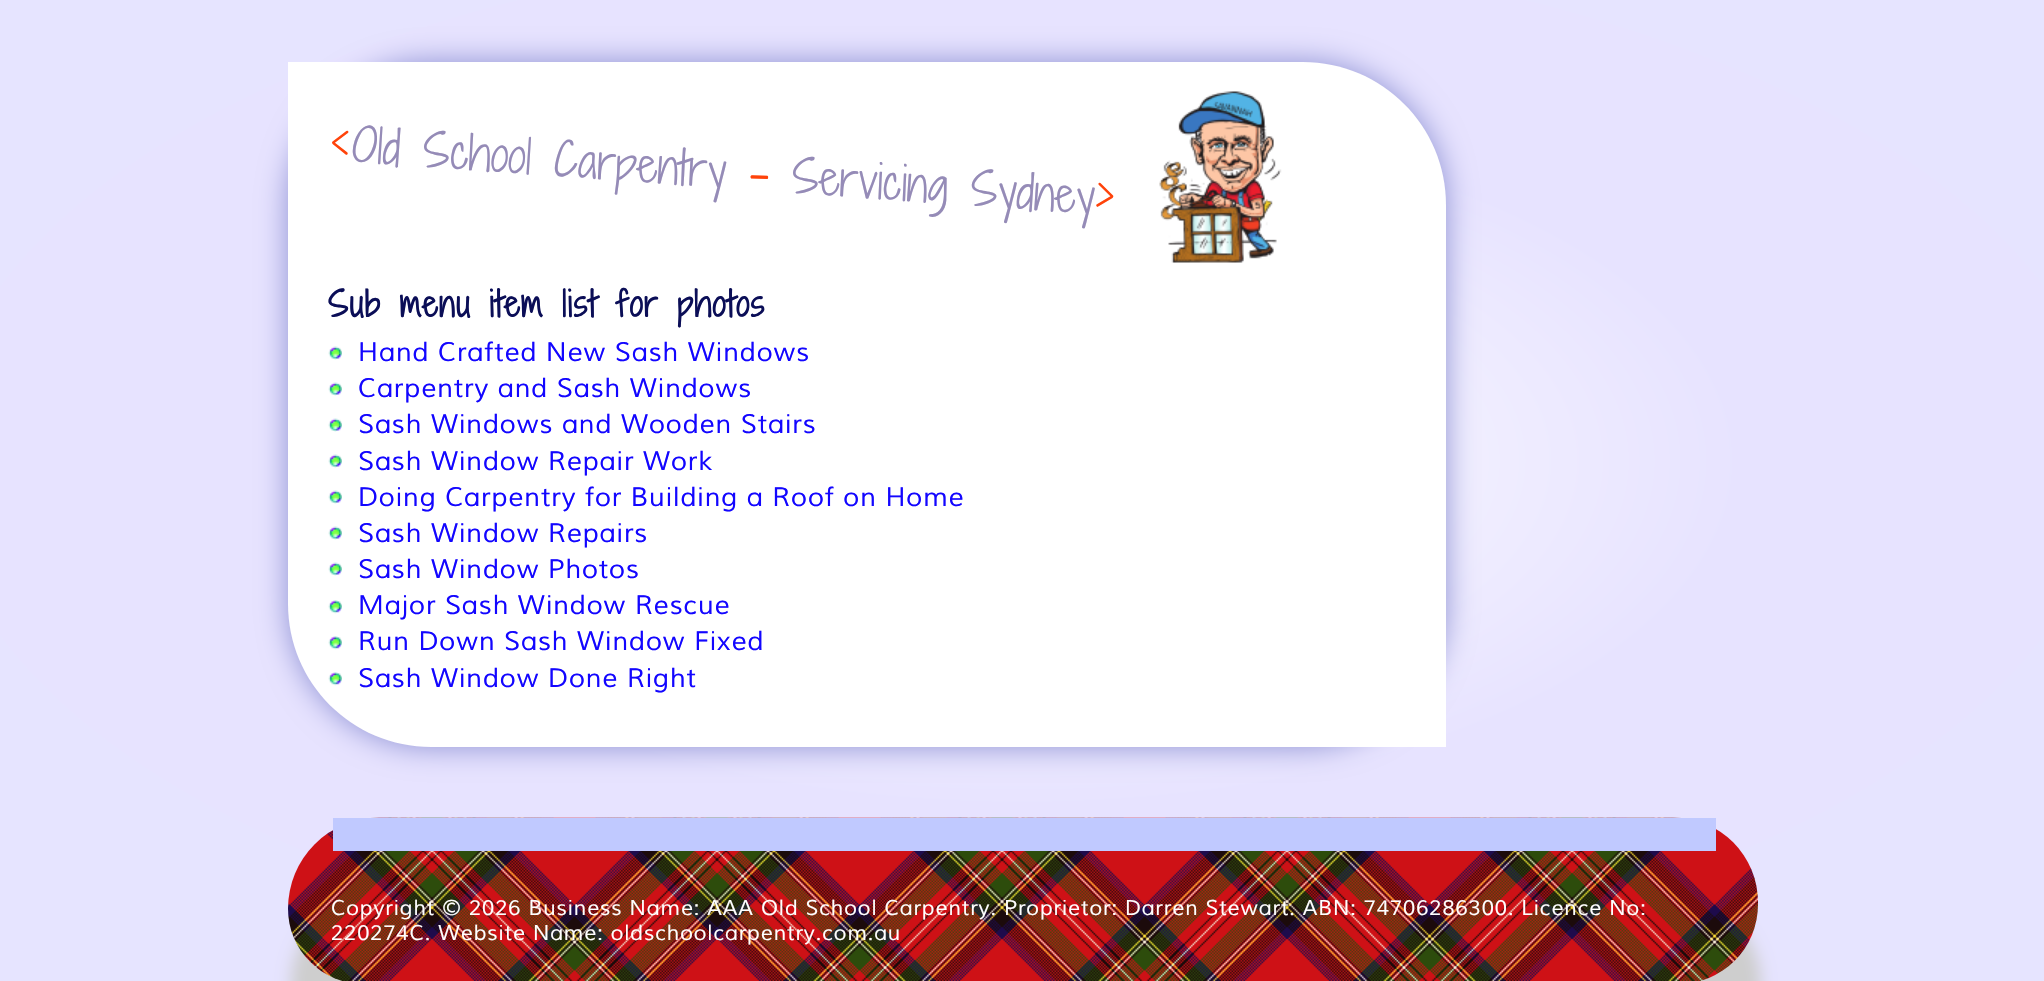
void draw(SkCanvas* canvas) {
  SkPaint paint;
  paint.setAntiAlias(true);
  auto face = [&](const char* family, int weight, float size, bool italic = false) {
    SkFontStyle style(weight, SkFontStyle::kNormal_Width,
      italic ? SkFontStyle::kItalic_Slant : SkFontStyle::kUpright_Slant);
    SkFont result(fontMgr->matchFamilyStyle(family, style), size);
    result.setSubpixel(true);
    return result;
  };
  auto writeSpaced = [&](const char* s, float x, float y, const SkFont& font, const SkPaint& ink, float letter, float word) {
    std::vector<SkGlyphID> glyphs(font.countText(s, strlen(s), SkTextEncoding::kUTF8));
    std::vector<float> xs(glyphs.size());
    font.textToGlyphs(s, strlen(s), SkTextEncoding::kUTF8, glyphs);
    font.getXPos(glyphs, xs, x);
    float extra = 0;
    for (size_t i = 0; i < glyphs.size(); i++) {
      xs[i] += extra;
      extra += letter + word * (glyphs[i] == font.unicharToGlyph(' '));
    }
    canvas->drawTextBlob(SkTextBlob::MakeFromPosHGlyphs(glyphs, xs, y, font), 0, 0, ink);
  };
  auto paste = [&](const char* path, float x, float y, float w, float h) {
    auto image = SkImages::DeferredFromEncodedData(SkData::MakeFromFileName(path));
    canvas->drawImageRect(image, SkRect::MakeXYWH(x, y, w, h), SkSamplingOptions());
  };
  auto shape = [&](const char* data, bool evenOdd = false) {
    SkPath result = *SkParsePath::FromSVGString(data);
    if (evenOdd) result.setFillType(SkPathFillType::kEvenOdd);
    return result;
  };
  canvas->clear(0xffffffff);
  {
    const SkColor colors[] = {0xffffffff, 0xffe7e3ff, 0xffe6e4ff};
    const float stops[] = {0, 0.5f, 1};
    SkMatrix m = SkMatrix::Translate(1022, 461).preScale(1446, 694);
    paint.setShader(SkGradientShader::MakeRadial({0, 0}, 1, colors, stops, 3, SkTileMode::kClamp, 0, &m));
    paint.setAlpha(255);
  }
  canvas->drawRect(SkRect::MakeXYWH(0, 0, 2044, 951), paint);
  {
    const SkColor colors[] = {0xffffffff, 0xffe7e3ff, 0xffe6e4ff};
    const float stops[] = {0, 0.5f, 1};
    SkMatrix m = SkMatrix::Translate(1022, 1442).preScale(1446, 694);
    paint.setShader(SkGradientShader::MakeRadial({0, 0}, 1, colors, stops, 3, SkTileMode::kClamp, 0, &m));
    paint.setAlpha(255);
  }
  canvas->drawRect(SkRect::MakeXYWH(0, 951, 2044, 30), paint);
  paint.setShader(nullptr);
  paint.setColor(0xff8c90d3);
  paint.setMaskFilter(SkMaskFilter::MakeBlur(kNormal_SkBlurStyle, 15));
  canvas->drawRoundRect(SkRect::MakeXYWH(288, 62, 1158, 685), 143, 143, paint);
  paint.setMaskFilter(nullptr);
  paint.setColor(0xffffffff);
  canvas->drawPath(shape("M288 62H1303C1382 62 1446 126 1446 205V747H431C352 747 288 683 288 604Z"), paint);
  paste("img/1.png", 1159, 91, 123, 172);
  paste("img/2.png", 328, 346, 14, 14);
  paste("img/2.png", 328, 382, 14, 14);
  paste("img/2.png", 328, 418, 14, 14);
  paste("img/2.png", 328, 454, 14, 14);
  paste("img/2.png", 328, 490, 14, 14);
  paste("img/2.png", 328, 526, 14, 14);
  paste("img/2.png", 328, 562, 14, 14);
  paste("img/3.png", 328, 600, 14, 14);
  paste("img/3.png", 328, 636, 14, 14);
  paste("img/3.png", 328, 672, 14, 14);
  paint.setColor(0xffcecece);
  paint.setMaskFilter(SkMaskFilter::MakeBlur(kNormal_SkBlurStyle, 8));
  canvas->drawRoundRect(SkRect::MakeXYWH(291, 900, 1470, 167), 92, 92, paint);
  paint.setMaskFilter(nullptr);
  paste("img/4.png", 288, 817, 1470, 164);
  paint.setColor(0xffc0c9ff);
  canvas->drawRect(SkRect::MakeXYWH(333, 818, 1383, 33), paint);
  auto f0 = face("Shadows Into Light Two", 300, 45.5f);
  paint.setColor(0xffff430a);
  canvas->save();
  canvas->rotate(4, 328, 160);
  canvas->drawString("<", 328, 160, f0, paint);
  canvas->restore();
  paint.setColor(0xff958bb7);
  canvas->save();
  canvas->rotate(4, 351, 162);
  canvas->drawString("Old School Carpentry", 351, 162, f0, paint);
  canvas->restore();
  paint.setColor(0xffff430a);
  canvas->save();
  canvas->rotate(4, 748, 190);
  canvas->drawString("-", 748, 190, f0, paint);
  canvas->restore();
  paint.setColor(0xff958bb7);
  canvas->save();
  canvas->rotate(4, 791, 193);
  canvas->drawString("Servicing Sydney", 791, 193, f0, paint);
  canvas->restore();
  paint.setColor(0xffff430a);
  canvas->save();
  canvas->rotate(4, 1094, 214);
  canvas->drawString(">", 1094, 214, f0, paint);
  canvas->restore();
  auto f1 = face("Shadows Into Light Two", 700, 33.6f);
  paint.setColor(0xff0b0e57);
  writeSpaced("Sub menu item list for photos", 328, 317, f1, paint, 1.5f, 0);
  auto f2 = face("Muli", 400, 26.4f, true);
  paint.setColor(0xff1306ff);
  {
    const struct { const char* s; float x, y; } items[] = {
      {"Hand Crafted New Sash Windows", 358, 361},
      {"Carpentry and Sash Windows", 358, 397},
      {"Sash Windows and Wooden Stairs", 358, 433},
      {"Sash Window Repair Work", 358, 470},
      {"Doing Carpentry for Building a Roof on Home", 358, 506},
      {"Sash Window Repairs", 358, 542},
      {"Sash Window Photos", 358, 578},
      {"Major Sash Window Rescue", 358, 614},
      {"Run Down Sash Window Fixed", 358, 650},
      {"Sash Window Done Right", 358, 687},
    };
    for (auto [s, x, y] : items) {
      writeSpaced(s, x, y, f2, paint, 0.9f, 0);
    }
  }
  auto f3 = face("Muli", 400, 21, true);
  paint.setColor(0xffffffff);
  writeSpaced("Copyright © 2026 Business Name: AAA Old School Carpentry. Proprietor: Darren Stewart. ABN: 74706286300. Licence No:", 331, 915, f3, paint, 0.9f, 0);
  writeSpaced("220274C. Website Name: oldschoolcarpentry.com.au", 331, 940, f3, paint, 0.9f, 0);
}
